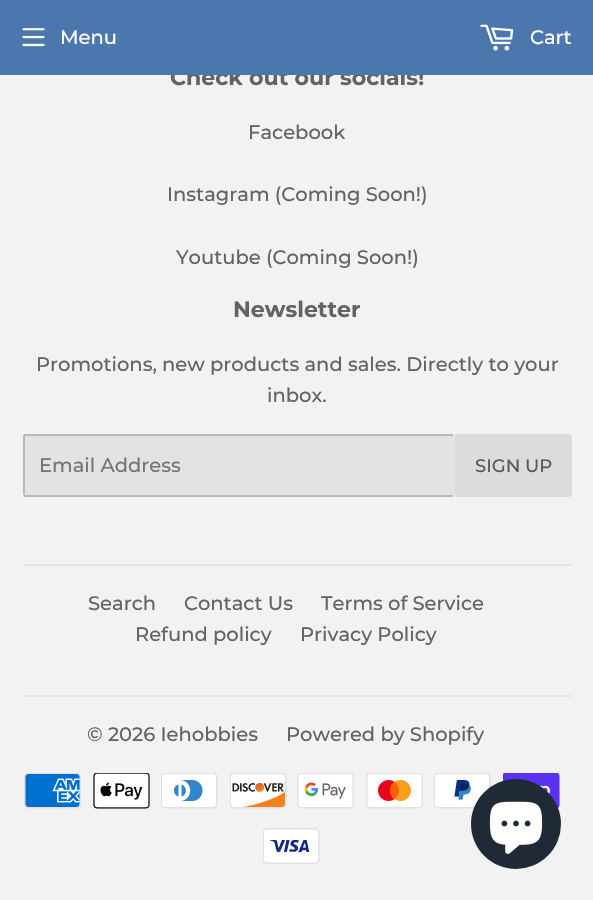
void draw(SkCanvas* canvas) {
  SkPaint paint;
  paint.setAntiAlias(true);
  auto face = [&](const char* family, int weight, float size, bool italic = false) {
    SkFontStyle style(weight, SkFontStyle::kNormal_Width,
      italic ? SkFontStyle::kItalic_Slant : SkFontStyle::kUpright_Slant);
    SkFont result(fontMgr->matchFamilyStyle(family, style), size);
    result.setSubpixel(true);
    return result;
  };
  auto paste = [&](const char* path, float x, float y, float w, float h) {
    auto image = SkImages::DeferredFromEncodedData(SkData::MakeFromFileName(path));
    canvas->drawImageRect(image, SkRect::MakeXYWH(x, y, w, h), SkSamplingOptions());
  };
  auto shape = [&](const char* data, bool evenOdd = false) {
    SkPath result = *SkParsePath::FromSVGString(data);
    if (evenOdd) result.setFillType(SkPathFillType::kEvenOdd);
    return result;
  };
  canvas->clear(0xfff2f2f2);
  paint.setColor(0xffe3e3e3);
  canvas->drawRoundRect(SkRect::MakeXYWH(23, 434, 432, 63), 3, 3, paint);
  {
    const struct { float x, y, w, h; SkColor color; } items[] = {
      {24, 434, 429, 2, 0xffb9b9b9},
      {24, 495, 429, 2, 0xffb9b9b9},
      {23, 435, 2, 60, 0xffb9b9b9},
    };
    for (auto [x, y, w, h, color] : items) {
      paint.setColor(color);
      canvas->drawRect(SkRect::MakeXYWH(x, y, w, h), paint);
    }
  }
  paint.setColor(0xffdcdcdc);
  canvas->drawPath(shape("M455 434H569C570.5 434 572 435.5 572 437V494C572 495.5 570.5 497 569 497H455Z"), paint);
  paint.setColor(0xffe5e5e5);
  canvas->drawRect(SkRect::MakeXYWH(23, 564, 549, 2), paint);
  canvas->drawRect(SkRect::MakeXYWH(23, 695, 549, 2), paint);
  paste("img/3.png", 24, 773, 57, 36);
  paste("img/4.png", 93, 773, 57, 36);
  paste("img/5.png", 161, 773, 57, 36);
  paste("img/6.png", 230, 773, 57, 36);
  paste("img/7.png", 297, 773, 57, 36);
  paste("img/8.png", 366, 773, 57, 36);
  paste("img/9.png", 434, 773, 57, 36);
  paste("img/10.png", 503, 773, 57, 35);
  paste("img/11.png", 263, 828, 57, 36);
  paint.setColor(0xff202a36);
  canvas->drawCircle(516, 824, 45, paint);
  paste("img/12.png", 489, 801, 54, 53);
  auto f0 = face("Montserrat", 700, 22.1f);
  paint.setColor(0xff636363);
  canvas->drawString("Check out our socials!", 170, 85, f0, paint);
  paint.setColor(0xff4b77ae);
  canvas->drawRect(SkRect::MakeXYWH(0, 0, 593, 75), paint);
  paste("img/2.png", 480, 24, 34, 27);
  auto f1 = face("Montserrat", 500, 19.5f);
  paint.setColor(0xffffffff);
  canvas->drawString("Cart", 530, 44, f1, paint);
  canvas->drawString("Menu", 60, 44, f1, paint);
  paste("img/1.png", 22, 28, 23, 19);
  paint.setColor(0xff636363);
  {
    const struct { const char* s; float x, y; } items[] = {
      {"Facebook", 248, 139},
      {"Instagram (Coming Soon!)", 167, 201},
      {"Youtube (Coming Soon!)", 176, 264},
    };
    for (auto [s, x, y] : items) {
      canvas->drawString(s, x, y, f1, paint);
    }
  }
  canvas->drawString("Newsletter", 233, 317, f0, paint);
  canvas->drawString("Promotions, new products and sales. Directly to your", 36, 371, f1, paint);
  canvas->drawString("inbox.", 267, 402, f1, paint);
  paint.setColor(0xff757575);
  canvas->drawString("Email Address", 39, 472, f1, paint);
  auto f2 = face("Montserrat", 500, 18);
  paint.setColor(0xff585858);
  canvas->drawString("SIGN UP", 475, 472, f2, paint);
  paint.setColor(0xff636363);
  {
    const struct { const char* s; float x, y; } items[] = {
      {"Search", 88, 610},
      {"Contact Us", 184, 610},
      {"Terms of Service", 321, 610},
      {"Refund policy", 135, 641},
      {"Privacy Policy", 300, 641},
      {"© 2026 Iehobbies", 87, 741},
      {"Powered by Shopify", 286, 741},
    };
    for (auto [s, x, y] : items) {
      canvas->drawString(s, x, y, f1, paint);
    }
  }
}
